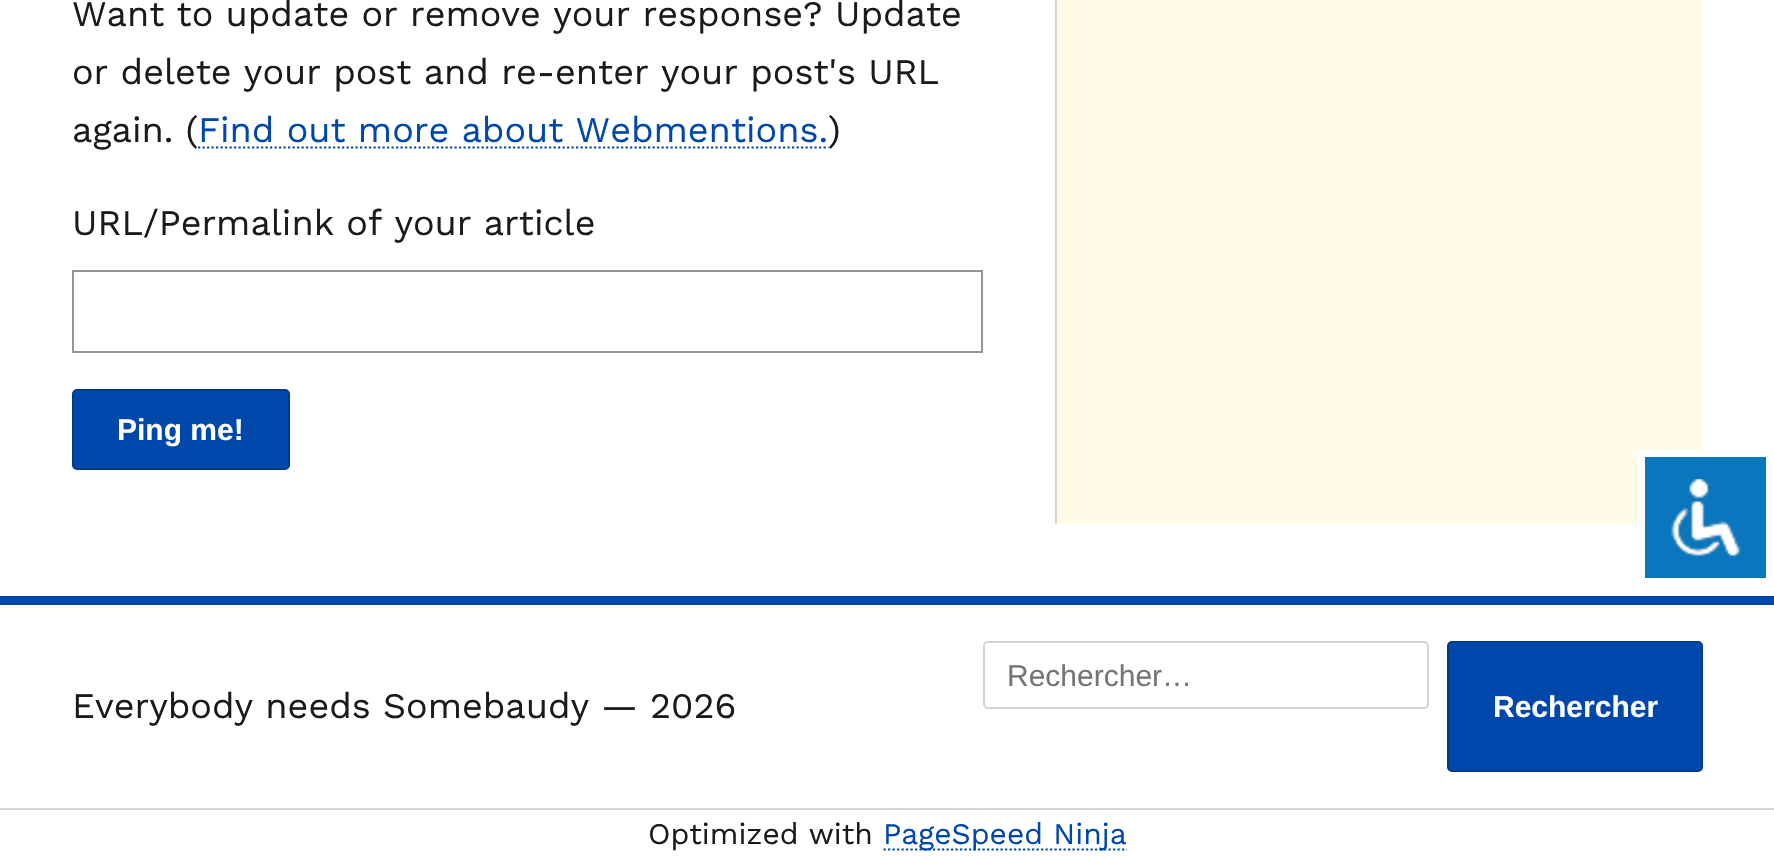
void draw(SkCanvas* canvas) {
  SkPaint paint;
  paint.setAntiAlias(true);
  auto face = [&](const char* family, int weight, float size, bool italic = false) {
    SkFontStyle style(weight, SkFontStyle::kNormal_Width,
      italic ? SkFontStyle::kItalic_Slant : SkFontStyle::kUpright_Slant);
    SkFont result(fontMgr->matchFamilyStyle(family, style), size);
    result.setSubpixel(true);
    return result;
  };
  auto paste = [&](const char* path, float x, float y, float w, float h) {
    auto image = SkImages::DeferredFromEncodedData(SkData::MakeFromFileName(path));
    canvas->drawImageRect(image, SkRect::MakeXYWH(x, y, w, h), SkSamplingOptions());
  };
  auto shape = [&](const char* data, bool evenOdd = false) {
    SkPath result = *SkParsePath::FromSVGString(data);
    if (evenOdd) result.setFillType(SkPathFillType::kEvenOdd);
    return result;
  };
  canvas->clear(0xffffffff);
  paint.setStroke(true);
  paint.setStrokeWidth(2.2f);
  paint.setColor(0xff0047ab);
  paint.setPathEffect(SkDashPathEffect::Make({{2.25f, 2.25f}}, 0));
  canvas->drawPath(shape("M198 147.5H828.5"), paint);
  paint.setPathEffect(nullptr);
  paint.setStrokeWidth(2);
  paint.setColor(0xff949494);
  canvas->drawRect(SkRect::MakeXYWH(73, 271, 909, 81), paint);
  paint.setStroke(false);
  paint.setColor(0xff0047ab);
  canvas->drawRoundRect(SkRect::MakeXYWH(73, 390, 216, 79), 4, 4, paint);
  paint.setStroke(true);
  paint.setColor(0xff003b8a);
  canvas->drawRoundRect(SkRect::MakeXYWH(73, 390, 216, 79), 4, 4, paint);
  paint.setStroke(false);
  {
    const struct { float x, y, w, h; SkColor color; } items[] = {
      {1057, 0, 646, 524, 0xfffffbe6},
      {1055, 0, 2, 524, 0xffd4d4d4},
      {0, 596, 1774, 9, 0xff0047ab},
      {0, 808, 1774, 2, 0xffd4d4d4},
    };
    for (auto [x, y, w, h, color] : items) {
      paint.setColor(color);
      canvas->drawRect(SkRect::MakeXYWH(x, y, w, h), paint);
    }
  }
  paint.setStroke(true);
  canvas->drawRoundRect(SkRect::MakeXYWH(984, 642, 444, 66), 4, 4, paint);
  paint.setStroke(false);
  paint.setColor(0xff0047ab);
  canvas->drawRoundRect(SkRect::MakeXYWH(1448, 642, 254, 129), 4, 4, paint);
  paint.setStroke(true);
  paint.setColor(0xff003b8a);
  canvas->drawRoundRect(SkRect::MakeXYWH(1448, 642, 254, 129), 4, 4, paint);
  paint.setStrokeWidth(2.2f);
  paint.setColor(0xff0047ab);
  paint.setPathEffect(SkDashPathEffect::Make({{2.25f, 2.25f}}, 0));
  canvas->drawPath(shape("M883.5 849.5H1127"), paint);
  paint.setPathEffect(nullptr);
  paint.setStroke(false);
  paint.setColor(0xff0a76be);
  canvas->drawRoundRect(SkRect::MakeXYWH(1641.5f, 453.5f, 128, 128), 1.5f, 1.5f, paint);
  paint.setStroke(true);
  paint.setStrokeWidth(7);
  paint.setColor(0xffffffff);
  canvas->drawRoundRect(SkRect::MakeXYWH(1641.5f, 453.5f, 128, 128), 1.5f, 1.5f, paint);
  paste("img/1.png", 1671, 479, 70, 78);
  auto f0 = face("Work Sans", 400, 36);
  paint.setStroke(false);
  paint.setColor(0xff1a1a1a);
  {
    const struct { const char* s; float x, y; } items[] = {
      {"Want to update or remove your response? Update", 72, 26},
      {"or delete your post and re-enter your post's URL", 72, 84},
      {"again. (", 72, 142},
    };
    for (auto [s, x, y] : items) {
      canvas->drawString(s, x, y, f0, paint);
    }
  }
  paint.setColor(0xff0047ab);
  canvas->drawString("Find out more about Webmentions.", 198, 142, f0, paint);
  paint.setColor(0xff1a1a1a);
  canvas->drawString(")", 828, 142, f0, paint);
  canvas->drawString("URL/Permalink of your article", 72, 235, f0, paint);
  auto f1 = face("Liberation Sans", 700, 30);
  paint.setColor(0xffffffff);
  canvas->drawString("Ping me!", 117, 440, f1, paint);
  paint.setColor(0xff1a1a1a);
  canvas->drawString("Everybody needs Somebaudy — 2026", 72, 718, f0, paint);
  auto f2 = face("Liberation Sans", 400, 30);
  paint.setColor(0xff757575);
  canvas->drawString("Rechercher…", 1007, 686, f2, paint);
  paint.setColor(0xffffffff);
  canvas->drawString("Rechercher", 1493, 717, f1, paint);
  auto f3 = face("Work Sans", 400, 30);
  paint.setColor(0xff1a1a1a);
  canvas->drawString("Optimized with", 648, 844, f3, paint);
  paint.setColor(0xff0047ab);
  canvas->drawString("PageSpeed Ninja", 883, 844, f3, paint);
}
